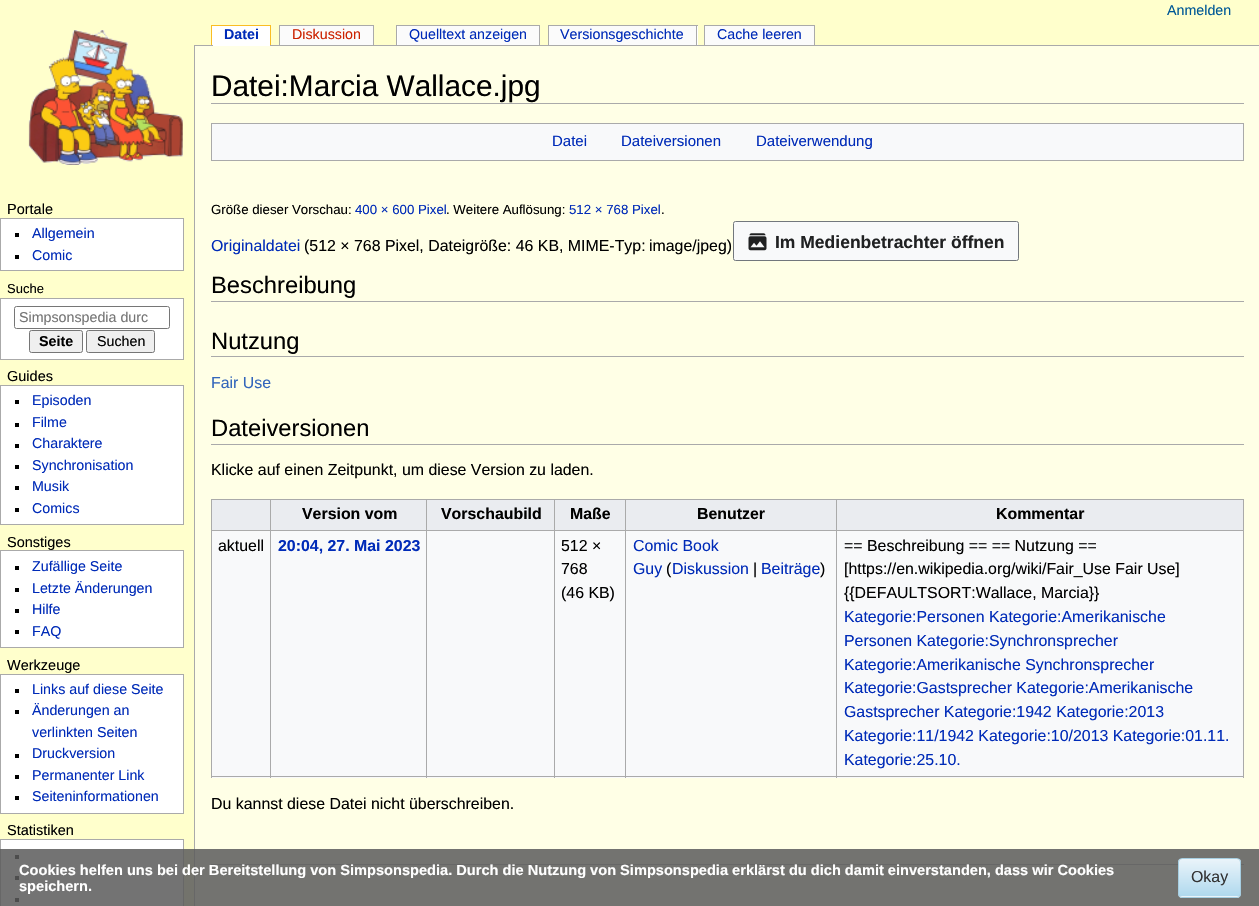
void draw(SkCanvas* canvas) {
  SkPaint paint;
  paint.setAntiAlias(true);
  auto face = [&](const char* family, int weight, float size, bool italic = false) {
    SkFontStyle style(weight, SkFontStyle::kNormal_Width,
      italic ? SkFontStyle::kItalic_Slant : SkFontStyle::kUpright_Slant);
    SkFont result(fontMgr->matchFamilyStyle(family, style), size);
    result.setSubpixel(true);
    return result;
  };
  auto paste = [&](const char* path, float x, float y, float w, float h) {
    auto image = SkImages::DeferredFromEncodedData(SkData::MakeFromFileName(path));
    canvas->drawImageRect(image, SkRect::MakeXYWH(x, y, w, h), SkSamplingOptions());
  };
  auto shape = [&](const char* data, bool evenOdd = false) {
    SkPath result = *SkParsePath::FromSVGString(data);
    if (evenOdd) result.setFillType(SkPathFillType::kEvenOdd);
    return result;
  };
  canvas->clear(0xffffffcc);
  paste("img/1.png", 28, 30, 155, 135);
  {
    const struct { float x, y, w, h; SkColor color; } items[] = {
      {212, 26, 1, 19, 0xffffffff},
      {211, 25, 60, 1, 0xfffabd23},
      {270, 25, 1, 20, 0xfffabd23},
      {211, 25, 1, 20, 0xfffabd23},
      {194, 45, 1065, 1, 0xffaaaaaa},
      {213, 26, 57, 20, 0xffffffff},
      {279, 25, 95, 1, 0xffaaaaaa},
      {373, 25, 1, 20, 0xffaaaaaa},
      {279, 25, 1, 20, 0xffaaaaaa},
      {280, 26, 93, 19, 0xfffbfbfb},
      {397, 26, 1, 19, 0xffffffff},
      {396, 25, 144, 1, 0xffaaaaaa},
      {539, 25, 1, 20, 0xffaaaaaa},
      {396, 25, 1, 20, 0xffaaaaaa},
      {398, 26, 141, 19, 0xfffbfbfb},
      {697, 26, 1, 19, 0xffffffff},
      {548, 25, 150, 1, 0xffaaaaaa},
      {696, 25, 1, 20, 0xffaaaaaa},
      {548, 25, 1, 20, 0xffaaaaaa},
      {549, 26, 147, 19, 0xfffbfbfb},
      {704, 25, 111, 1, 0xffaaaaaa},
      {814, 25, 1, 20, 0xffaaaaaa},
      {704, 25, 1, 20, 0xffaaaaaa},
      {705, 26, 109, 19, 0xfffbfbfb},
    };
    for (auto [x, y, w, h, color] : items) {
      paint.setColor(color);
      canvas->drawRect(SkRect::MakeXYWH(x, y, w, h), paint);
    }
  }
  paint.setColor(0xffffffff);
  canvas->drawRect(SkRect::MakeXYWH(0.5f, 218.5f, 183, 52), paint);
  paint.setStroke(true);
  paint.setStrokeWidth(1);
  paint.setColor(0xffaaaaaa);
  canvas->drawRect(SkRect::MakeXYWH(0.5f, 218.5f, 183, 52), paint);
  paint.setStroke(false);
  paint.setColor(0xff000000);
  canvas->drawRect(SkRect::MakeXYWH(15, 233, 4, 4), paint);
  canvas->drawRect(SkRect::MakeXYWH(15, 255, 4, 4), paint);
  paint.setColor(0xffffffff);
  canvas->drawRect(SkRect::MakeXYWH(0.5f, 298.5f, 183, 61), paint);
  paint.setStroke(true);
  paint.setColor(0xffaaaaaa);
  canvas->drawRect(SkRect::MakeXYWH(0.5f, 298.5f, 183, 61), paint);
  paint.setColor(0xff767676);
  canvas->drawRoundRect(SkRect::MakeXYWH(14.5f, 306.5f, 155, 22), 2, 2, paint);
  paint.setStroke(false);
  paint.setColor(0xffefefef);
  canvas->drawRoundRect(SkRect::MakeXYWH(29.5f, 330.5f, 53, 22), 2, 2, paint);
  paint.setStroke(true);
  paint.setColor(0xff767676);
  canvas->drawRoundRect(SkRect::MakeXYWH(29.5f, 330.5f, 53, 22), 2, 2, paint);
  paint.setStroke(false);
  paint.setColor(0xffefefef);
  canvas->drawRoundRect(SkRect::MakeXYWH(86.5f, 330.5f, 68, 22), 2, 2, paint);
  paint.setStroke(true);
  paint.setColor(0xff767676);
  canvas->drawRoundRect(SkRect::MakeXYWH(86.5f, 330.5f, 68, 22), 2, 2, paint);
  paint.setStroke(false);
  paint.setColor(0xffffffff);
  canvas->drawRect(SkRect::MakeXYWH(0.5f, 385.5f, 183, 139), paint);
  paint.setStroke(true);
  paint.setColor(0xffaaaaaa);
  canvas->drawRect(SkRect::MakeXYWH(0.5f, 385.5f, 183, 139), paint);
  paint.setStroke(false);
  {
    const struct { float x, y, w, h; SkColor color; } items[] = {
      {15, 400, 4, 4, 0xff000000},
      {15, 423, 4, 4, 0xff000000},
      {15, 444, 4, 4, 0xff000000},
      {15, 465, 4, 4, 0xff000000},
      {15, 486, 4, 4, 0xff000000},
      {15, 508, 4, 4, 0xff000000},
    };
    for (auto [x, y, w, h, color] : items) {
      paint.setColor(color);
      canvas->drawRect(SkRect::MakeXYWH(x, y, w, h), paint);
    }
  }
  paint.setColor(0xffffffff);
  canvas->drawRect(SkRect::MakeXYWH(0.5f, 550.5f, 183, 97), paint);
  paint.setStroke(true);
  paint.setColor(0xffaaaaaa);
  canvas->drawRect(SkRect::MakeXYWH(0.5f, 550.5f, 183, 97), paint);
  paint.setStroke(false);
  {
    const struct { float x, y, w, h; SkColor color; } items[] = {
      {15, 566, 4, 4, 0xff000000},
      {15, 588, 4, 4, 0xff000000},
      {15, 609, 4, 4, 0xff000000},
      {15, 630, 4, 4, 0xff000000},
    };
    for (auto [x, y, w, h, color] : items) {
      paint.setColor(color);
      canvas->drawRect(SkRect::MakeXYWH(x, y, w, h), paint);
    }
  }
  paint.setColor(0xffffffff);
  canvas->drawRect(SkRect::MakeXYWH(0.5f, 674.5f, 183, 139), paint);
  paint.setStroke(true);
  paint.setColor(0xffaaaaaa);
  canvas->drawRect(SkRect::MakeXYWH(0.5f, 674.5f, 183, 139), paint);
  paint.setStroke(false);
  {
    const struct { float x, y, w, h; SkColor color; } items[] = {
      {15, 689, 4, 4, 0xff000000},
      {15, 710, 4, 4, 0xff000000},
      {15, 754, 4, 4, 0xff000000},
      {15, 775, 4, 4, 0xff000000},
      {15, 796, 4, 4, 0xff000000},
    };
    for (auto [x, y, w, h, color] : items) {
      paint.setColor(color);
      canvas->drawRect(SkRect::MakeXYWH(x, y, w, h), paint);
    }
  }
  paint.setColor(0xffffffff);
  canvas->drawRect(SkRect::MakeXYWH(0.5f, 839.5f, 183, 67), paint);
  paint.setStroke(true);
  paint.setColor(0xffaaaaaa);
  canvas->drawRect(SkRect::MakeXYWH(0.5f, 839.5f, 183, 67), paint);
  paint.setStroke(false);
  {
    const struct { float x, y, w, h; SkColor color; } items[] = {
      {15, 855, 4, 4, 0xff000000},
      {15, 876, 4, 4, 0xff000000},
      {15, 898, 4, 4, 0xff000000},
      {195, 46, 1064, 860, 0xffffffe6},
      {194, 45, 1, 861, 0xffaaaaaa},
      {211, 103, 1033, 1, 0xffaaaaaa},
    };
    for (auto [x, y, w, h, color] : items) {
      paint.setColor(color);
      canvas->drawRect(SkRect::MakeXYWH(x, y, w, h), paint);
    }
  }
  paint.setColor(0xfff8f9fa);
  canvas->drawRect(SkRect::MakeXYWH(211.5f, 123.5f, 1032, 37), paint);
  paint.setStroke(true);
  paint.setColor(0xffaaaaaa);
  canvas->drawRect(SkRect::MakeXYWH(211.5f, 123.5f, 1032, 37), paint);
  paint.setStroke(false);
  paint.setColor(0xfff8f9fa);
  canvas->drawRoundRect(SkRect::MakeXYWH(733.5f, 221.5f, 285, 39), 2, 2, paint);
  paint.setStroke(true);
  paint.setColor(0xff72777d);
  canvas->drawRoundRect(SkRect::MakeXYWH(733.5f, 221.5f, 285, 39), 2, 2, paint);
  paste("img/2.png", 748, 233, 19, 18);
  paint.setStroke(false);
  {
    const struct { float x, y, w, h; SkColor color; } items[] = {
      {211, 301, 1033, 1, 0xffaaaaaa},
      {211, 356, 1033, 1, 0xffaaaaaa},
      {211, 444, 1033, 1, 0xffaaaaaa},
      {212, 531, 1031, 247, 0xfff8f9fa},
      {211, 499, 1033, 1, 0xffaaaaaa},
      {1243, 499, 1, 279, 0xffaaaaaa},
      {211, 776, 1033, 1, 0xffaaaaaa},
      {211, 499, 1, 279, 0xffaaaaaa},
      {212, 500, 58, 30, 0xffeaecf0},
      {271, 500, 283, 30, 0xffeaecf0},
      {836, 530, 408, 1, 0xffaaaaaa},
      {836, 530, 1, 248, 0xffaaaaaa},
      {625, 530, 213, 1, 0xffaaaaaa},
      {625, 530, 1, 248, 0xffaaaaaa},
      {554, 530, 72, 1, 0xffaaaaaa},
      {554, 530, 1, 248, 0xffaaaaaa},
      {426, 530, 129, 1, 0xffaaaaaa},
      {426, 530, 1, 248, 0xffaaaaaa},
      {270, 530, 158, 1, 0xffaaaaaa},
      {270, 530, 1, 248, 0xffaaaaaa},
      {211, 530, 60, 1, 0xffaaaaaa},
      {270, 499, 1, 32, 0xffaaaaaa},
      {426, 499, 1, 32, 0xffaaaaaa},
      {555, 500, 70, 30, 0xffeaecf0},
      {554, 499, 1, 32, 0xffaaaaaa},
      {626, 500, 210, 30, 0xffeaecf0},
      {625, 499, 1, 32, 0xffaaaaaa},
      {837, 500, 406, 30, 0xffeaecf0},
      {836, 499, 1, 32, 0xffaaaaaa},
      {211, 864, 1033, 1, 0xffaaaaaa},
      {0, 849, 1259, 57, 0xd95a5a5a},
    };
    for (auto [x, y, w, h, color] : items) {
      paint.setColor(color);
      canvas->drawRect(SkRect::MakeXYWH(x, y, w, h), paint);
    }
  }
  canvas->save();
  canvas->clipPath(shape("M1182 858H1237C1239 858 1241 860 1241 862V894C1241 896 1239 898 1237 898H1182C1180 898 1178 896 1178 894V862C1178 860 1180 858 1182 858Z"), true);
  {
    const SkColor colors[] = {0xffeaf4fa, 0xffb0d9ee};
    const float stops[] = {0, 1};
    const SkPoint ends[] = {{1209, 859}, {1209, 896}};
    paint.setShader(SkGradientShader::MakeLinear(ends, colors, stops, 2, SkTileMode::kClamp));
    paint.setAlpha(255);
  }
  canvas->drawRect(SkRect::MakeXYWH(1178, 859, 63, 37), paint);
  {
    const SkColor colors[] = {0xffeaf4fa, 0xffb0d9ee};
    const float stops[] = {0, 1};
    const SkPoint ends[] = {{1209, 896}, {1209, 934}};
    paint.setShader(SkGradientShader::MakeLinear(ends, colors, stops, 2, SkTileMode::kClamp));
    paint.setAlpha(255);
  }
  canvas->drawRect(SkRect::MakeXYWH(1178, 896, 63, 2), paint);
  canvas->restore();
  paint.setStroke(true);
  paint.setShader(nullptr);
  paint.setColor(0xffa6cee1);
  canvas->drawRoundRect(SkRect::MakeXYWH(1178.5f, 858.5f, 62, 39), 3.5f, 3.5f, paint);
  auto f0 = face("Liberation Sans", 400, 14.25f);
  paint.setStroke(false);
  paint.setColor(0xff005896);
  canvas->drawString("Anmelden", 1167, 15, f0, paint);
  auto f1 = face("Liberation Sans", 700, 14.25f);
  paint.setColor(0xff002bb8);
  canvas->drawString("Datei", 224, 39, f1, paint);
  paint.setColor(0xffcc2200);
  canvas->drawString("Diskussion", 292, 39, f0, paint);
  paint.setColor(0xff002bb8);
  {
    const struct { const char* s; float x, y; } items[] = {
      {"Quelltext anzeigen", 409, 39},
      {"Versionsgeschichte", 560, 39},
      {"Cache leeren", 717, 39},
    };
    for (auto [s, x, y] : items) {
      canvas->drawString(s, x, y, f0, paint);
    }
  }
  auto f2 = face("Liberation Sans", 400, 14.5f);
  paint.setColor(0xff000000);
  canvas->drawString("Portale", 7, 214, f2, paint);
  paint.setColor(0xff002bb8);
  canvas->drawString("Allgemein", 32, 238, f0, paint);
  canvas->drawString("Comic", 32, 260, f0, paint);
  auto f3 = face("Liberation Sans", 400, 13);
  paint.setColor(0xff000000);
  canvas->drawString("Suche", 7, 293, f3, paint);
  paint.setColor(0xff757575);
  canvas->drawString("Simpsonspedia durc", 19, 322, f0, paint);
  paint.setColor(0xff000000);
  canvas->drawString("Seite", 39, 346, f1, paint);
  canvas->drawString("Suchen", 97, 346, f0, paint);
  canvas->drawString("Guides", 7, 381, f2, paint);
  paint.setColor(0xff002bb8);
  {
    const struct { const char* s; float x, y; } items[] = {
      {"Episoden", 32, 405},
      {"Filme", 32, 427},
      {"Charaktere", 32, 448},
      {"Synchronisation", 32, 470},
      {"Musik", 32, 491},
      {"Comics", 32, 513},
    };
    for (auto [s, x, y] : items) {
      canvas->drawString(s, x, y, f0, paint);
    }
  }
  paint.setColor(0xff000000);
  canvas->drawString("Sonstiges", 7, 547, f2, paint);
  paint.setColor(0xff002bb8);
  {
    const struct { const char* s; float x, y; } items[] = {
      {"Zufällige Seite", 32, 571},
      {"Letzte Änderungen", 32, 593},
      {"Hilfe", 32, 614},
      {"FAQ", 32, 636},
    };
    for (auto [s, x, y] : items) {
      canvas->drawString(s, x, y, f0, paint);
    }
  }
  paint.setColor(0xff000000);
  canvas->drawString("Werkzeuge", 7, 670, f2, paint);
  paint.setColor(0xff002bb8);
  {
    const struct { const char* s; float x, y; } items[] = {
      {"Links auf diese Seite", 32, 694},
      {"Änderungen an", 32, 715},
      {"verlinkten Seiten", 32, 737},
      {"Druckversion", 32, 758},
      {"Permanenter Link", 32, 780},
      {"Seiteninformationen", 32, 801},
    };
    for (auto [s, x, y] : items) {
      canvas->drawString(s, x, y, f0, paint);
    }
  }
  paint.setColor(0xff000000);
  canvas->drawString("Statistiken", 7, 835, f2, paint);
  auto f4 = face("Liberation Sans", 400, 29.8f);
  canvas->drawString("Datei:Marcia Wallace.jpg", 211, 96, f4, paint);
  auto f5 = face("Liberation Sans", 400, 15);
  paint.setColor(0xff002bb8);
  {
    const struct { const char* s; float x, y; } items[] = {
      {"Datei", 552, 146},
      {"Dateiversionen", 621, 146},
      {"Dateiverwendung", 756, 146},
    };
    for (auto [s, x, y] : items) {
      canvas->drawString(s, x, y, f5, paint);
    }
  }
  auto f6 = face("Liberation Sans", 400, 13.25f);
  paint.setColor(0xff000000);
  canvas->drawString("Größe dieser Vorschau:", 211, 214, f6, paint);
  paint.setColor(0xff002bb8);
  canvas->drawString("400 × 600 Pixel", 355, 214, f6, paint);
  paint.setColor(0xff000000);
  canvas->drawString(". Weitere Auflösung:", 446, 214, f6, paint);
  paint.setColor(0xff002bb8);
  canvas->drawString("512 × 768 Pixel", 569, 214, f6, paint);
  paint.setColor(0xff000000);
  canvas->drawString(".", 661, 214, f6, paint);
  auto f7 = face("Liberation Sans", 400, 15.9f);
  paint.setColor(0xff002bb8);
  canvas->drawString("Originaldatei", 211, 251, f7, paint);
  paint.setColor(0xff000000);
  canvas->drawString("(512 × 768 Pixel, Dateigröße: 46 KB, MIME-Typ:", 304, 251, f7, paint);
  canvas->drawString("image/jpeg)", 649, 251, f7, paint);
  auto f8 = face("Liberation Sans", 700, 17.5f);
  paint.setColor(0xff202122);
  canvas->drawString("Im Medienbetrachter öffnen", 775, 248, f8, paint);
  auto f9 = face("Liberation Sans", 400, 23.75f);
  paint.setColor(0xff000000);
  canvas->drawString("Beschreibung", 211, 293, f9, paint);
  canvas->drawString("Nutzung", 211, 349, f9, paint);
  paint.setColor(0xff3366bb);
  canvas->drawString("Fair Use", 211, 388, f7, paint);
  paint.setColor(0xff000000);
  canvas->drawString("Dateiversionen", 211, 436, f9, paint);
  canvas->drawString("Klicke auf einen Zeitpunkt, um diese Version zu laden.", 211, 475, f7, paint);
  auto f10 = face("Liberation Sans", 700, 15.9f);
  {
    const struct { const char* s; float x, y; } items[] = {
      {"Version vom", 302, 519},
      {"Vorschaubild", 441, 519},
      {"Maße", 570, 519},
      {"Benutzer", 697, 519},
      {"Kommentar", 996, 519},
    };
    for (auto [s, x, y] : items) {
      canvas->drawString(s, x, y, f10, paint);
    }
  }
  canvas->drawString("aktuell", 218, 551, f7, paint);
  paint.setColor(0xff002bb8);
  canvas->drawString("20:04, 27. Mai 2023", 278, 551, f10, paint);
  paint.setColor(0xff000000);
  {
    const struct { const char* s; float x, y; } items[] = {
      {"512 ×", 561, 551},
      {"768", 561, 574},
      {"(46 KB)", 561, 598},
    };
    for (auto [s, x, y] : items) {
      canvas->drawString(s, x, y, f7, paint);
    }
  }
  paint.setColor(0xff002bb8);
  canvas->drawString("Comic Book", 633, 551, f7, paint);
  canvas->drawString("Guy", 633, 574, f7, paint);
  paint.setColor(0xff000000);
  canvas->drawString("(", 666, 574, f7, paint);
  paint.setColor(0xff002bb8);
  canvas->drawString("Diskussion", 672, 574, f7, paint);
  paint.setColor(0xff000000);
  canvas->drawString("|", 753, 574, f7, paint);
  paint.setColor(0xff002bb8);
  canvas->drawString("Beiträge", 761, 574, f7, paint);
  paint.setColor(0xff000000);
  {
    const struct { const char* s; float x, y; } items[] = {
      {")", 820, 574},
      {"== Beschreibung == == Nutzung ==", 844, 551},
      {"[https://en.wikipedia.org/wiki/Fair_Use Fair Use]", 844, 574},
      {"{{DEFAULTSORT:Wallace, Marcia}}", 844, 598},
    };
    for (auto [s, x, y] : items) {
      canvas->drawString(s, x, y, f7, paint);
    }
  }
  paint.setColor(0xff002bb8);
  {
    const struct { const char* s; float x, y; } items[] = {
      {"Kategorie:Personen Kategorie:Amerikanische", 844, 622},
      {"Personen Kategorie:Synchronsprecher", 844, 646},
      {"Kategorie:Amerikanische Synchronsprecher", 844, 670},
      {"Kategorie:Gastsprecher Kategorie:Amerikanische", 844, 693},
      {"Gastsprecher Kategorie:1942 Kategorie:2013", 844, 717},
      {"Kategorie:11/1942 Kategorie:10/2013 Kategorie:01.11.", 844, 741},
      {"Kategorie:25.10.", 844, 765},
    };
    for (auto [s, x, y] : items) {
      canvas->drawString(s, x, y, f7, paint);
    }
  }
  paint.setColor(0xff000000);
  canvas->drawString("Du kannst diese Datei nicht überschreiben.", 211, 809, f7, paint);
  auto f11 = face("Liberation Sans", 700, 14.6f);
  paint.setColor(0xffffffff);
  canvas->drawString("Cookies helfen uns bei der Bereitstellung von Simpsonspedia. Durch die Nutzung von Simpsonspedia erklärst du dich damit einverstanden, dass wir Cookies", 19, 875, f11, paint);
  canvas->drawString("speichern.", 19, 891, f11, paint);
  paint.setColor(0xff333333);
  canvas->drawString("Okay", 1191, 882, f7, paint);
}
